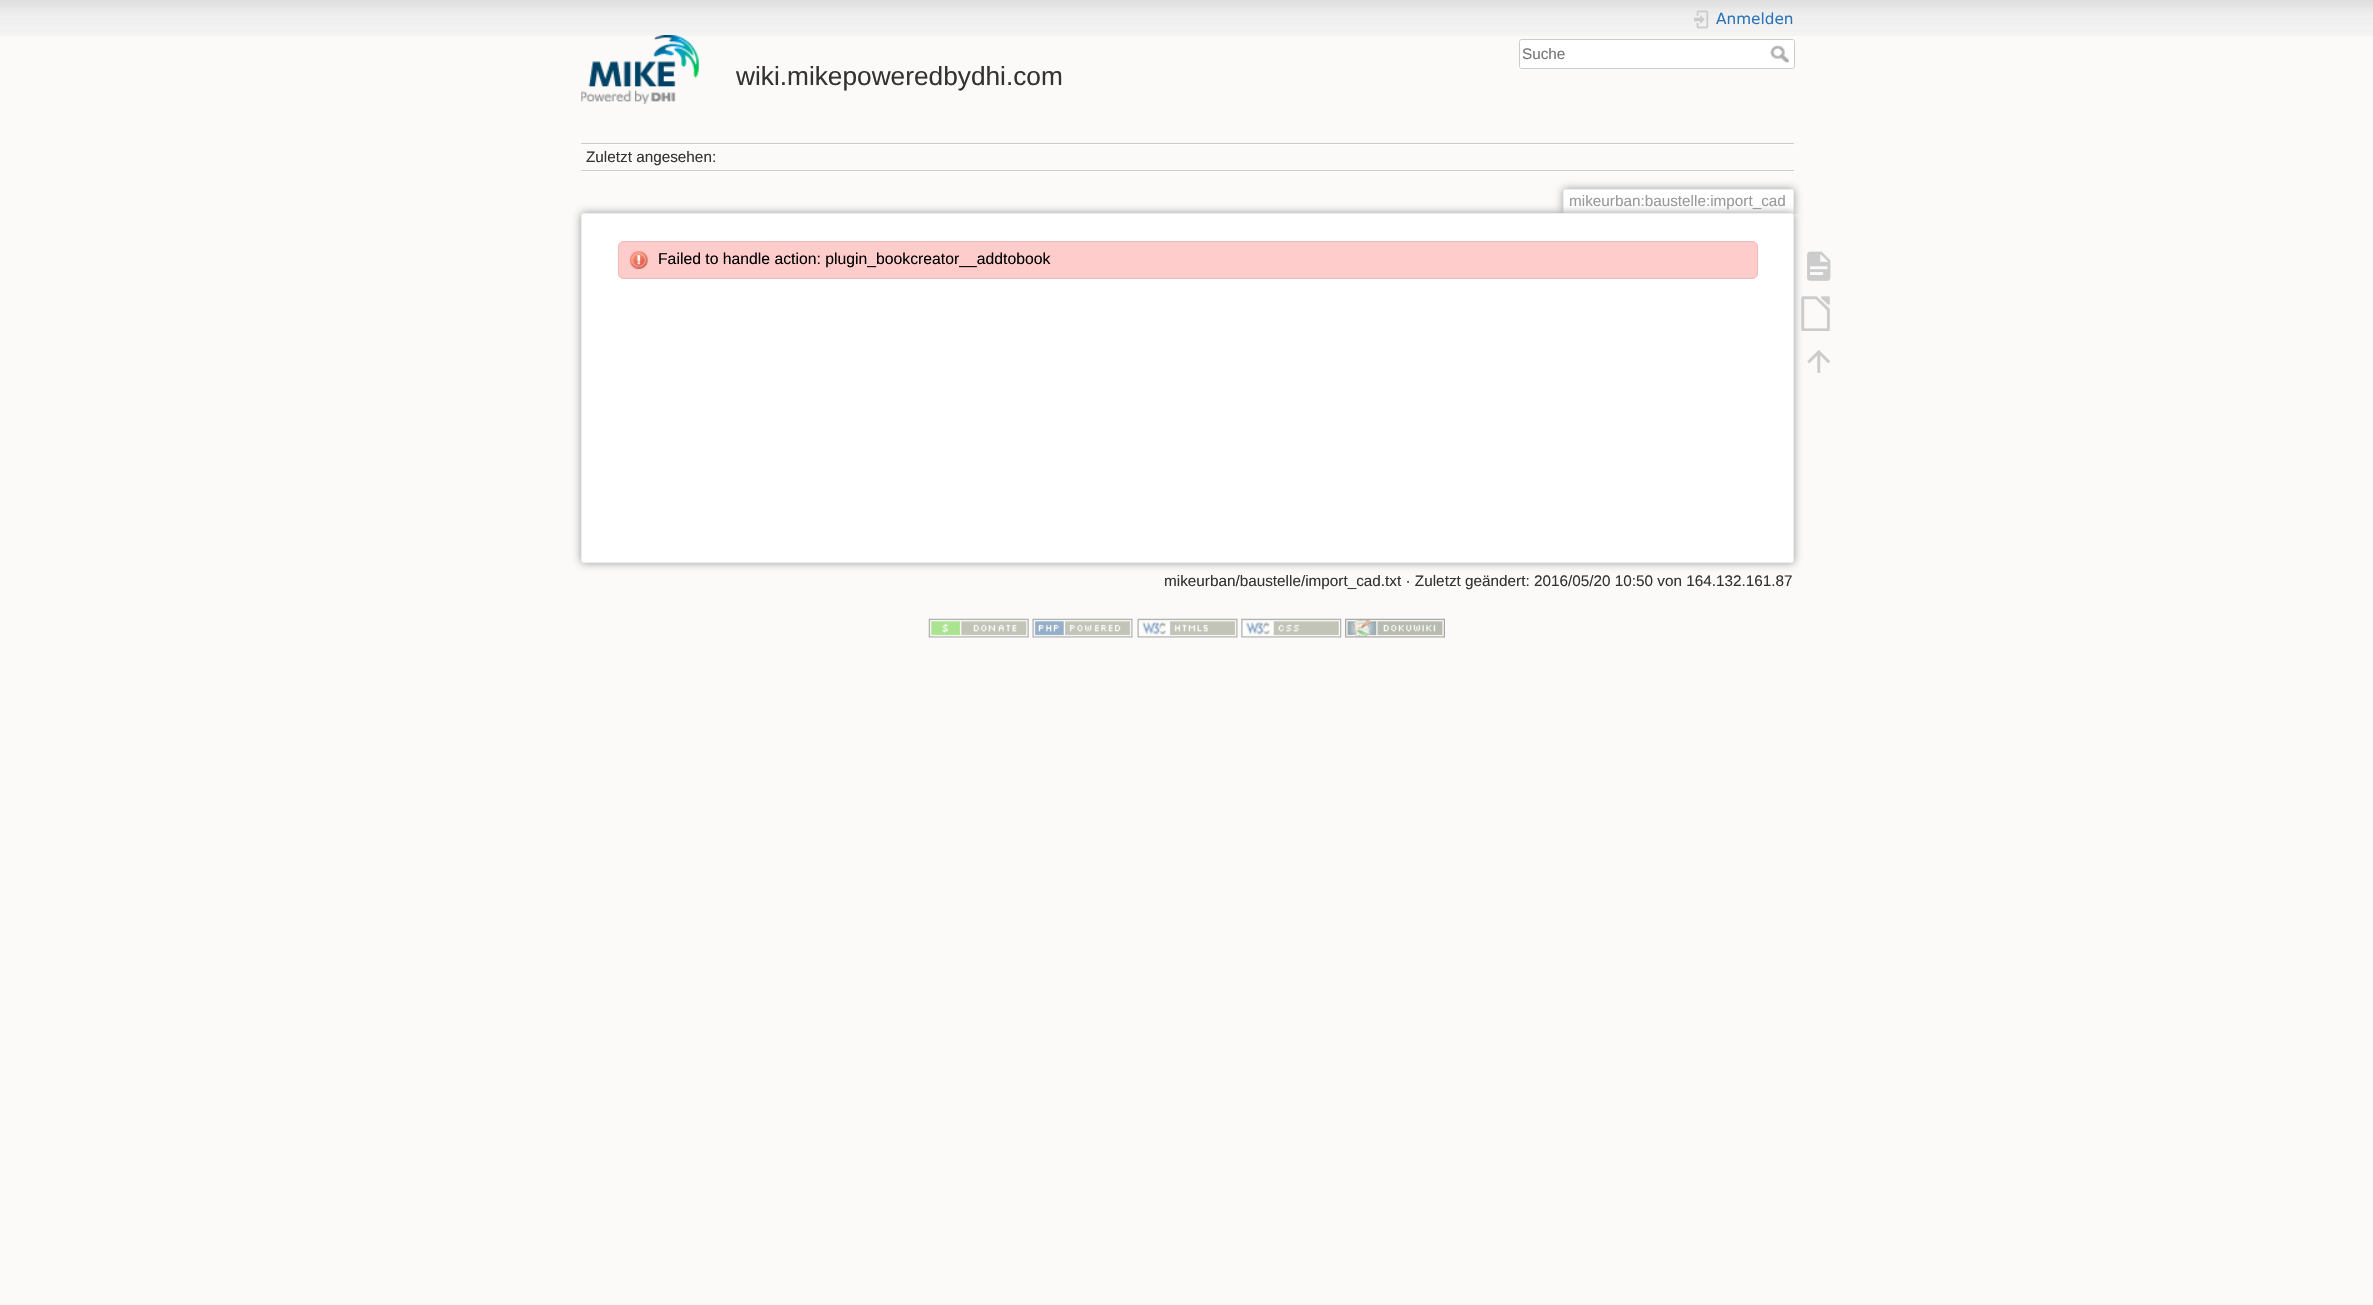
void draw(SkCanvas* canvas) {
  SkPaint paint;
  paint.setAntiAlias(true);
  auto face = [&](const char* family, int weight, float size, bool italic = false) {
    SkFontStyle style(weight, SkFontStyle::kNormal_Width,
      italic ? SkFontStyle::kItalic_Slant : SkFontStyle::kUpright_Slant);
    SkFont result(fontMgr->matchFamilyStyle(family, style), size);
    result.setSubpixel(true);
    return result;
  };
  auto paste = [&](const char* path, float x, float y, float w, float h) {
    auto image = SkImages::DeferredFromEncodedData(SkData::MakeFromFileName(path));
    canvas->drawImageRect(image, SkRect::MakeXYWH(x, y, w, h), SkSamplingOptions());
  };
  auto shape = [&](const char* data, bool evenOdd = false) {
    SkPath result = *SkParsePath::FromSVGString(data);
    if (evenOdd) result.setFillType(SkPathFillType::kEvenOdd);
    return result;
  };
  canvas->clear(0xfffbfaf9);
  paste("img/1.png", 0, 0, 2373, 36);
  paste("img/2.png", 1694, 10, 15, 19);
  paint.setColor(0xffffffff);
  canvas->drawRoundRect(SkRect::MakeXYWH(1519.5f, 39.5f, 275, 29), 2, 2, paint);
  paint.setStroke(true);
  paint.setStrokeWidth(1);
  paint.setColor(0xffcccccc);
  canvas->drawRoundRect(SkRect::MakeXYWH(1519.5f, 39.5f, 275, 29), 2, 2, paint);
  paste("img/3.png", 1770, 45, 19, 18);
  paste("img/4.png", 581, 35, 118, 69);
  paint.setStroke(false);
  {
    const struct { float x, y, w, h; SkColor color; } items[] = {
      {581, 143, 1213, 1, 0xffcccccc},
      {581, 171, 1213, 1, 0xffffffff},
      {581, 144, 1213, 1, 0xffffffff},
      {581, 170, 1213, 1, 0xffcccccc},
    };
    for (auto [x, y, w, h, color] : items) {
      paint.setColor(color);
      canvas->drawRect(SkRect::MakeXYWH(x, y, w, h), paint);
    }
  }
  canvas->save();
  canvas->clipRect(SkRect::MakeXYWH(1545, 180, 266, 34));
  paint.setColor(0xff999999);
  paint.setMaskFilter(SkMaskFilter::MakeBlur(kNormal_SkBlurStyle, 4));
  canvas->drawRoundRect(SkRect::MakeXYWH(1563, 189, 231, 25), 2.5f, 2.5f, paint);
  paint.setMaskFilter(nullptr);
  canvas->restore();
  paint.setColor(0xffffffff);
  canvas->drawPath(shape("M1565 190H1792C1792.5 190 1793 190.5 1793 191V214H1564V191C1564 190.5 1564.5 190 1565 190Z"), paint);
  {
    const struct { float x, y, w, h; SkColor color; } items[] = {
      {1564, 189, 229, 1, 0xffeeeeee},
      {1793, 190, 1, 24, 0xffeeeeee},
      {1563, 190, 1, 24, 0xffeeeeee},
    };
    for (auto [x, y, w, h, color] : items) {
      paint.setColor(color);
      canvas->drawRect(SkRect::MakeXYWH(x, y, w, h), paint);
    }
  }
  paint.setColor(0xff999999);
  paint.setMaskFilter(SkMaskFilter::MakeBlur(kNormal_SkBlurStyle, 4.5f));
  canvas->drawRoundRect(SkRect::MakeXYWH(581, 213, 1213, 350), 2.5f, 2.5f, paint);
  paint.setMaskFilter(nullptr);
  paint.setColor(0xffffffff);
  canvas->drawRoundRect(SkRect::MakeXYWH(581.5f, 213.5f, 1212, 349), 2, 2, paint);
  paint.setStroke(true);
  paint.setColor(0xffeeeeee);
  canvas->drawRoundRect(SkRect::MakeXYWH(581.5f, 213.5f, 1212, 349), 2, 2, paint);
  paint.setStroke(false);
  paint.setColor(0xffffcccc);
  canvas->drawRoundRect(SkRect::MakeXYWH(618, 241, 1140, 38), 6, 6, paint);
  paste("img/5.png", 629, 251, 19, 18);
  paint.setStroke(true);
  paint.setColor(0xffeebbbb);
  canvas->drawRoundRect(SkRect::MakeXYWH(618.5f, 241.5f, 1139, 37), 5.5f, 5.5f, paint);
  paste("img/6.png", 1807, 251, 24, 30);
  paste("img/7.png", 1801, 296, 29, 35);
  paste("img/8.png", 1807, 350, 24, 23);
  paste("img/9.png", 928, 618, 101, 20);
  paste("img/10.png", 1032, 618, 101, 20);
  paste("img/11.png", 1137, 618, 101, 20);
  paste("img/12.png", 1241, 618, 101, 20);
  paste("img/13.png", 1345, 618, 100, 20);
  auto f0 = face("DejaVu Sans", 400, 15.3f);
  paint.setStroke(false);
  paint.setColor(0xff2b73b7);
  canvas->drawString("Anmelden", 1716, 24, f0, paint);
  auto f1 = face("Liberation Sans", 400, 15.3f);
  paint.setColor(0xff757575);
  canvas->drawString("Suche", 1522, 59, f1, paint);
  auto f2 = face("Liberation Sans", 400, 26.25f);
  paint.setColor(0xff333333);
  canvas->drawString("wiki.mikepoweredbydhi.com", 736, 85, f2, paint);
  canvas->drawString("Zuletzt angesehen:", 586, 162, f1, paint);
  paint.setColor(0xff999999);
  canvas->drawString("mikeurban:baustelle:import_cad", 1569, 206, f1, paint);
  auto f3 = face("Liberation Sans", 400, 15.75f);
  paint.setColor(0xff000000);
  canvas->drawString("Failed to handle action: plugin_bookcreator__addtobook", 658, 264, f3, paint);
  paint.setColor(0xff333333);
  canvas->drawString("mikeurban/baustelle/import_cad.txt · Zuletzt geändert: 2016/05/20 10:50 von 164.132.161.87", 1164, 586, f1, paint);
}
